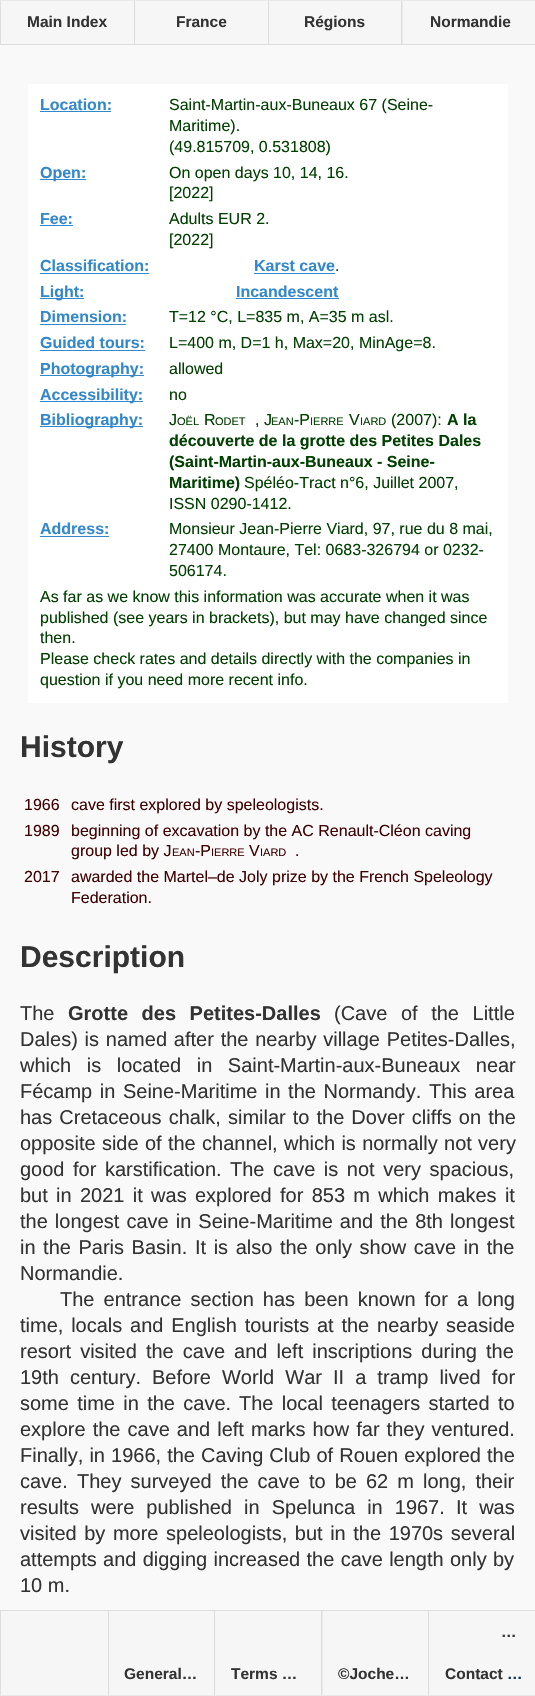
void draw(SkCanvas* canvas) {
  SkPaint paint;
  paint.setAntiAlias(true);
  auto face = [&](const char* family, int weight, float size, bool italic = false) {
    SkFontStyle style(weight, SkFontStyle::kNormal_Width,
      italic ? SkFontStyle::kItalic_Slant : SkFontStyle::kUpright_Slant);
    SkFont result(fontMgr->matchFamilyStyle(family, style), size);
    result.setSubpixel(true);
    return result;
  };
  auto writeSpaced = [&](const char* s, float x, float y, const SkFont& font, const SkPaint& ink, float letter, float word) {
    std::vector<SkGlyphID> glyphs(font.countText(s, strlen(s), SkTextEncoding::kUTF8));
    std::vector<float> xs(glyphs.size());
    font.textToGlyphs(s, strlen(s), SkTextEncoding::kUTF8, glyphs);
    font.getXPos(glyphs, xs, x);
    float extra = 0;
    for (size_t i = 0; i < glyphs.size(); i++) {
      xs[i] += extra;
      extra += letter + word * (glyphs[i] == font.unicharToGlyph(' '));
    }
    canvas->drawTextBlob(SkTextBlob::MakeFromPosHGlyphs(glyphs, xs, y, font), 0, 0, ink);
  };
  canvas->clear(0xfff9f9f9);
  {
    const struct { float x, y, w, h; SkColor color; } items[] = {
      {0, 0, 535, 44, 0xffe9e9e9},
      {0, 44, 535, 1, 0xffdddddd},
      {1, 1, 133, 43, 0xfff6f6f6},
      {0, 1, 1, 43, 0xffdddddd},
      {135, 1, 133, 43, 0xfff6f6f6},
      {134, 1, 1, 43, 0xffdddddd},
      {269, 1, 132, 43, 0xfff6f6f6},
      {268, 1, 1, 43, 0xffdddddd},
      {403, 1, 132, 43, 0xfff6f6f6},
      {401, 1, 1, 43, 0xffdddddd},
      {28, 84, 480, 619, 0xffffffff},
      {40, 111, 71, 1, 0xff3388cc},
      {40, 179, 46, 1, 0xff3388cc},
      {40, 225, 33, 1, 0xff3388cc},
      {40, 273, 109, 1, 0xff3388cc},
      {254, 273, 81, 1, 0xff3388cc},
      {40, 298, 44, 1, 0xff3388cc},
      {236, 298, 103, 1, 0xff3388cc},
      {40, 324, 86, 1, 0xff3388cc},
      {40, 350, 105, 1, 0xff3388cc},
      {40, 375, 104, 1, 0xff3388cc},
      {40, 401, 103, 1, 0xff3388cc},
      {40, 426, 103, 1, 0xff3388cc},
      {40, 536, 69, 1, 0xff3388cc},
      {0, 1611, 535, 85, 0xffe9e9e9},
      {0, 1610, 535, 1, 0xffdddddd},
      {1, 1611, 107, 84, 0xfff6f6f6},
      {0, 1611, 1, 84, 0xffdddddd},
      {109, 1611, 105, 84, 0xfff6f6f6},
      {108, 1611, 1, 84, 0xffdddddd},
      {215, 1611, 106, 84, 0xfff6f6f6},
      {214, 1611, 1, 84, 0xffdddddd},
      {323, 1611, 105, 84, 0xfff6f6f6},
      {321, 1611, 1, 84, 0xffdddddd},
      {429, 1611, 106, 84, 0xfff6f6f6},
      {428, 1611, 1, 84, 0xffdddddd},
    };
    for (auto [x, y, w, h, color] : items) {
      paint.setColor(color);
      canvas->drawRect(SkRect::MakeXYWH(x, y, w, h), paint);
    }
  }
  auto f0 = face("Liberation Sans", 700, 15.5f);
  paint.setColor(0xff333333);
  {
    const struct { const char* s; float x, y; } items[] = {
      {"Main Index", 27, 27},
      {"France", 176, 27},
      {"Régions", 304, 27},
      {"Normandie", 430, 27},
    };
    for (auto [s, x, y] : items) {
      canvas->drawString(s, x, y, f0, paint);
    }
  }
  auto f1 = face("Liberation Sans", 700, 16);
  paint.setColor(0xff3388cc);
  canvas->drawString("Location:", 40, 110, f1, paint);
  auto f2 = face("Liberation Sans", 400, 16);
  paint.setColor(0xff004000);
  {
    const struct { const char* s; float x, y; } items[] = {
      {"Saint-Martin-aux-Buneaux 67 (Seine-", 169, 110},
      {"Maritime).", 169, 131},
      {"(49.815709, 0.531808)", 169, 152},
    };
    for (auto [s, x, y] : items) {
      canvas->drawString(s, x, y, f2, paint);
    }
  }
  paint.setColor(0xff3388cc);
  canvas->drawString("Open:", 40, 178, f1, paint);
  paint.setColor(0xff004000);
  canvas->drawString("On open days 10, 14, 16.", 169, 178, f2, paint);
  canvas->drawString("[2022]", 169, 198, f2, paint);
  paint.setColor(0xff3388cc);
  canvas->drawString("Fee:", 40, 224, f1, paint);
  paint.setColor(0xff004000);
  canvas->drawString("Adults EUR 2.", 169, 224, f2, paint);
  canvas->drawString("[2022]", 169, 245, f2, paint);
  paint.setColor(0xff3388cc);
  canvas->drawString("Classification:", 40, 271, f1, paint);
  canvas->drawString("Karst cave", 254, 271, f1, paint);
  paint.setColor(0xff004000);
  canvas->drawString(".", 335, 271, f2, paint);
  paint.setColor(0xff3388cc);
  {
    const struct { const char* s; float x, y; } items[] = {
      {"Light:", 40, 297},
      {"Incandescent", 236, 297},
      {"Dimension:", 40, 322},
    };
    for (auto [s, x, y] : items) {
      canvas->drawString(s, x, y, f1, paint);
    }
  }
  paint.setColor(0xff004000);
  canvas->drawString("T=12 °C, L=835 m, A=35 m asl.", 169, 322, f2, paint);
  paint.setColor(0xff3388cc);
  canvas->drawString("Guided tours:", 40, 348, f1, paint);
  paint.setColor(0xff004000);
  canvas->drawString("L=400 m, D=1 h, Max=20, MinAge=8.", 169, 348, f2, paint);
  paint.setColor(0xff3388cc);
  canvas->drawString("Photography:", 40, 374, f1, paint);
  paint.setColor(0xff004000);
  canvas->drawString("allowed", 169, 374, f2, paint);
  paint.setColor(0xff3388cc);
  canvas->drawString("Accessibility:", 40, 400, f1, paint);
  paint.setColor(0xff004000);
  canvas->drawString("no", 169, 400, f2, paint);
  paint.setColor(0xff3388cc);
  canvas->drawString("Bibliography:", 40, 425, f1, paint);
  paint.setColor(0xff004000);
  canvas->drawString("J", 169, 425, f2, paint);
  auto f3 = face("Liberation Sans", 400, 11);
  canvas->drawString("OËL", 177, 425, f3, paint);
  canvas->drawString("R", 204, 425, f2, paint);
  canvas->drawString("ODET", 215, 425, f3, paint);
  canvas->drawString(", J", 255, 425, f2, paint);
  canvas->drawString("EAN", 271, 425, f3, paint);
  canvas->drawString("-P", 294, 425, f2, paint);
  canvas->drawString("IERRE", 310, 425, f3, paint);
  canvas->drawString("V", 349, 425, f2, paint);
  canvas->drawString("IARD", 360, 425, f3, paint);
  canvas->drawString("(2007):", 391, 425, f2, paint);
  {
    const struct { const char* s; float x, y; } items[] = {
      {"A la", 447, 425},
      {"découverte de la grotte des Petites Dales", 169, 446},
      {"(Saint-Martin-aux-Buneaux - Seine-", 169, 467},
      {"Maritime)", 169, 488},
    };
    for (auto [s, x, y] : items) {
      canvas->drawString(s, x, y, f1, paint);
    }
  }
  canvas->drawString("Spéléo-Tract n°6, Juillet 2007,", 244, 488, f2, paint);
  canvas->drawString("ISSN 0290-1412.", 169, 509, f2, paint);
  paint.setColor(0xff3388cc);
  canvas->drawString("Address:", 40, 534, f1, paint);
  paint.setColor(0xff004000);
  {
    const struct { const char* s; float x, y; } items[] = {
      {"Monsieur Jean-Pierre Viard, 97, rue du 8 mai,", 169, 534},
      {"27400 Montaure, Tel: 0683-326794 or 0232-", 169, 555},
      {"506174.", 169, 576},
      {"As far as we know this information was accurate when it was", 40, 602},
      {"published (see years in brackets), but may have changed since", 40, 623},
      {"then.", 40, 643},
      {"Please check rates and details directly with the companies in", 40, 664},
      {"question if you need more recent info.", 40, 685},
    };
    for (auto [s, x, y] : items) {
      canvas->drawString(s, x, y, f2, paint);
    }
  }
  auto f4 = face("Liberation Sans", 700, 30);
  paint.setColor(0xff333333);
  canvas->drawString("History", 20, 757, f4, paint);
  paint.setColor(0xff400000);
  {
    const struct { const char* s; float x, y; } items[] = {
      {"1966", 24, 810},
      {"cave first explored by speleologists.", 71, 810},
      {"1989", 24, 836},
      {"beginning of excavation by the AC Renault-Cléon caving", 71, 836},
      {"group led by J", 71, 856},
    };
    for (auto [s, x, y] : items) {
      canvas->drawString(s, x, y, f2, paint);
    }
  }
  canvas->drawString("EAN", 172, 856, f3, paint);
  canvas->drawString("-P", 195, 856, f2, paint);
  canvas->drawString("IERRE", 211, 856, f3, paint);
  canvas->drawString("V", 249, 856, f2, paint);
  canvas->drawString("IARD", 260, 856, f3, paint);
  {
    const struct { const char* s; float x, y; } items[] = {
      {".", 295, 856},
      {"2017", 24, 882},
      {"awarded the Martel–de Joly prize by the French Speleology", 71, 882},
      {"Federation.", 71, 903},
    };
    for (auto [s, x, y] : items) {
      canvas->drawString(s, x, y, f2, paint);
    }
  }
  paint.setColor(0xff333333);
  canvas->drawString("Description", 20, 967, f4, paint);
  auto f5 = face("Liberation Sans", 400, 20);
  canvas->drawString("The", 20, 1020, f5, paint);
  auto f6 = face("Liberation Sans", 700, 20);
  writeSpaced("Grotte des Petites-Dalles", 68, 1020, f6, paint, 0, 8);
  writeSpaced("(Cave of the Little", 334, 1020, f5, paint, 0, 8);
  writeSpaced("Dales) is named after the nearby village Petites-Dalles,", 20, 1046, f5, paint, 0, 1.25f);
  writeSpaced("which is located in Saint-Martin-aux-Buneaux near", 20, 1072, f5, paint, 0, 10);
  writeSpaced("Fécamp in Seine-Maritime in the Normandy.", 20, 1098, f5, paint, 0, 2);
  writeSpaced("This area", 429, 1098, f5, paint, 0, 2);
  writeSpaced("has Cretaceous chalk, similar to the Dover cliffs on the", 20, 1124, f5, paint, 0, 1.5f);
  writeSpaced("opposite side of the channel, which is normally not very", 20, 1150, f5, paint, 0, 0.75f);
  writeSpaced("good for karstification.", 20, 1176, f5, paint, 0, 3);
  writeSpaced("The cave is not very spacious,", 230, 1176, f5, paint, 0, 3);
  writeSpaced("but in 2021 it was explored for 853 m which makes it", 20, 1202, f5, paint, 0, 2.75f);
  writeSpaced("the longest cave in Seine-Maritime and the 8th longest", 20, 1228, f5, paint, 0, 1.5f);
  writeSpaced("in the Paris Basin.", 20, 1254, f5, paint, 0, 2);
  writeSpaced("It is also the only show cave in the", 195, 1254, f5, paint, 0, 2);
  canvas->drawString("Normandie.", 20, 1280, f5, paint);
  writeSpaced("The entrance section has been known for a long", 60, 1306, f5, paint, 0, 3.5f);
  writeSpaced("time, locals and English tourists at the nearby seaside", 20, 1332, f5, paint, 0, 2.25f);
  writeSpaced("resort visited the cave and left inscriptions during the", 20, 1358, f5, paint, 0, 3.5f);
  writeSpaced("19th century.", 20, 1384, f5, paint, 0, 5.5f);
  writeSpaced("Before World War II a tramp lived for", 152, 1384, f5, paint, 0, 5.5f);
  writeSpaced("some time in the cave.", 20, 1410, f5, paint, 0, 2.75f);
  writeSpaced("The local teenagers started to", 239, 1410, f5, paint, 0, 2.75f);
  writeSpaced("explore the cave and left marks how far they ventured.", 20, 1436, f5, paint, 0, 1.5f);
  writeSpaced("Finally, in 1966, the Caving Club of Rouen explored the", 20, 1462, f5, paint, 0, 0.5f);
  canvas->drawString("cave.", 20, 1488, f5, paint);
  writeSpaced("They surveyed the cave to be 62 m long, their", 77, 1488, f5, paint, 0, 3.5f);
  writeSpaced("results were published in Spelunca in 1967.", 20, 1514, f5, paint, 0, 6.5f);
  writeSpaced("It was", 456, 1514, f5, paint, 0, 6.5f);
  writeSpaced("visited by more speleologists, but in the 1970s several", 20, 1540, f5, paint, 0, 2);
  writeSpaced("attempts and digging increased the cave length only by", 20, 1566, f5, paint, 0, 0.75f);
  canvas->drawString("10 m.", 20, 1592, f5, paint);
  {
    const struct { const char* s; float x, y; } items[] = {
      {"…", 501, 1637},
      {"General…", 124, 1679},
      {"Terms …", 231, 1679},
      {"©Joche…", 338, 1679},
      {"Contact", 445, 1679},
    };
    for (auto [s, x, y] : items) {
      canvas->drawString(s, x, y, f0, paint);
    }
  }
  paint.setColor(0xff13305b);
  canvas->drawString("…", 507, 1679, f0, paint);
}
